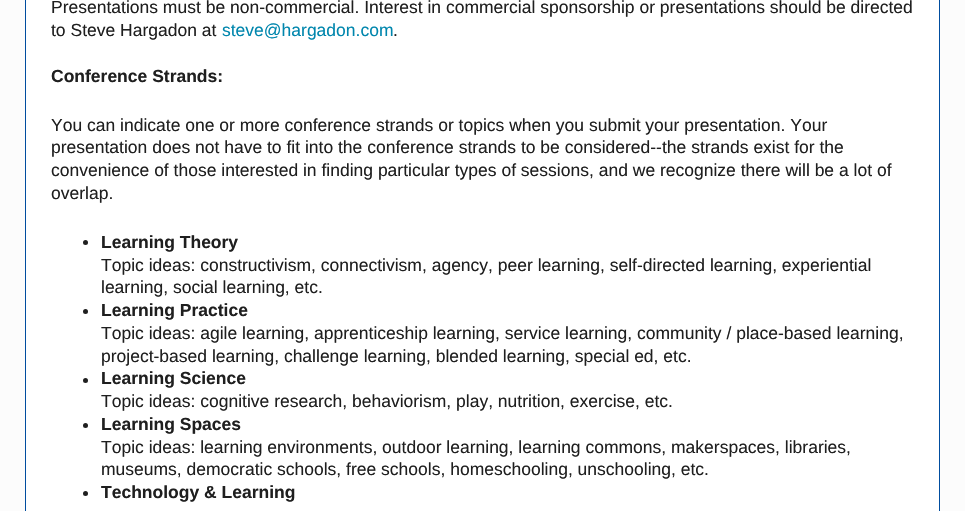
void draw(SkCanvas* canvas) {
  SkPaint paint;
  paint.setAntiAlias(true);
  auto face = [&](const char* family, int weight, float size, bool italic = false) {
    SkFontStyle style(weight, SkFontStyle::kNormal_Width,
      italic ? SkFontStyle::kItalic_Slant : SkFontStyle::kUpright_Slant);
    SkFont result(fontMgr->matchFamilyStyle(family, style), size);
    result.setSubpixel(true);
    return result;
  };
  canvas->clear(0xfffcfcfc);
  paint.setColor(0xffffffff);
  canvas->drawRect(SkRect::MakeXYWH(25.5f, -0.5f, 914, 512), paint);
  paint.setStroke(true);
  paint.setStrokeWidth(1);
  paint.setColor(0xff004d9f);
  canvas->drawRect(SkRect::MakeXYWH(25.5f, -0.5f, 914, 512), paint);
  paint.setStroke(false);
  paint.setColor(0xff1f1f1f);
  canvas->drawCircle(85.5f, 242.5f, 2.5f, paint);
  canvas->drawCircle(85.5f, 311.5f, 2.5f, paint);
  canvas->drawCircle(85.5f, 380.5f, 2.5f, paint);
  canvas->drawCircle(85.5f, 425.5f, 2.5f, paint);
  canvas->drawCircle(85.5f, 493.5f, 2.5f, paint);
  auto f0 = face("Liberation Sans", 400, 17.5f);
  canvas->drawString("Presentations must be non-commercial. Interest in commercial sponsorship or presentations should be directed", 51, 13, f0, paint);
  canvas->drawString("to Steve Hargadon at", 51, 36, f0, paint);
  paint.setColor(0xff0086ad);
  canvas->drawString("steve@hargadon.com", 222, 36, f0, paint);
  paint.setColor(0xff1f1f1f);
  canvas->drawString(".", 393, 36, f0, paint);
  auto f1 = face("Liberation Sans", 700, 17.5f);
  canvas->drawString("Conference Strands:", 51, 82, f1, paint);
  {
    const struct { const char* s; float x, y; } items[] = {
      {"You can indicate one or more conference strands or topics when you submit your presentation. Your", 51, 131},
      {"presentation does not have to fit into the conference strands to be considered--the strands exist for the", 51, 153},
      {"convenience of those interested in finding particular types of sessions, and we recognize there will be a lot of", 51, 176},
      {"overlap.", 51, 199},
    };
    for (auto [s, x, y] : items) {
      canvas->drawString(s, x, y, f0, paint);
    }
  }
  canvas->drawString("Learning Theory", 101, 248, f1, paint);
  canvas->drawString("Topic ideas: constructivism, connectivism, agency, peer learning, self-directed learning, experiential", 101, 271, f0, paint);
  canvas->drawString("learning, social learning, etc.", 101, 293, f0, paint);
  canvas->drawString("Learning Practice", 101, 316, f1, paint);
  canvas->drawString("Topic ideas: agile learning, apprenticeship learning, service learning, community / place-based learning,", 101, 339, f0, paint);
  canvas->drawString("project-based learning, challenge learning, blended learning, special ed, etc.", 101, 362, f0, paint);
  canvas->drawString("Learning Science", 101, 384, f1, paint);
  canvas->drawString("Topic ideas: cognitive research, behaviorism, play, nutrition, exercise, etc.", 101, 407, f0, paint);
  canvas->drawString("Learning Spaces", 101, 430, f1, paint);
  canvas->drawString("Topic ideas: learning environments, outdoor learning, learning commons, makerspaces, libraries,", 101, 453, f0, paint);
  canvas->drawString("museums, democratic schools, free schools, homeschooling, unschooling, etc.", 101, 475, f0, paint);
  canvas->drawString("Technology & Learning", 101, 498, f1, paint);
}
